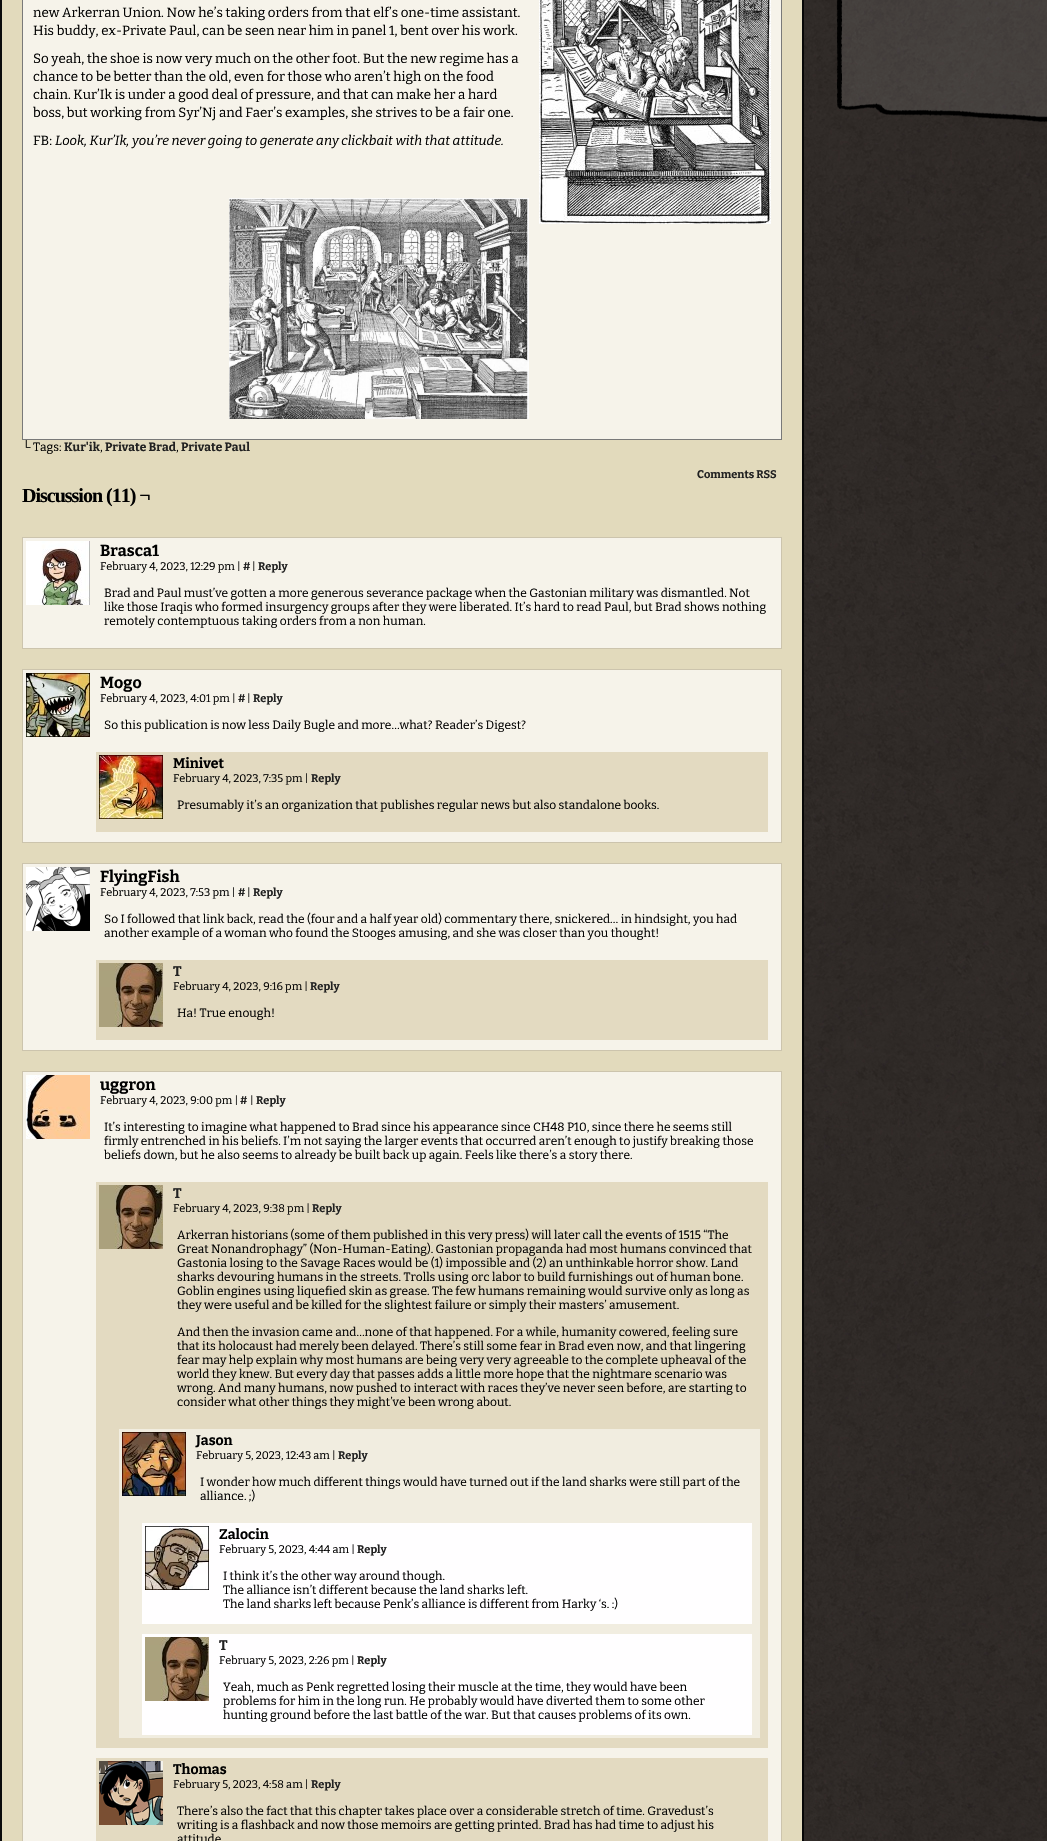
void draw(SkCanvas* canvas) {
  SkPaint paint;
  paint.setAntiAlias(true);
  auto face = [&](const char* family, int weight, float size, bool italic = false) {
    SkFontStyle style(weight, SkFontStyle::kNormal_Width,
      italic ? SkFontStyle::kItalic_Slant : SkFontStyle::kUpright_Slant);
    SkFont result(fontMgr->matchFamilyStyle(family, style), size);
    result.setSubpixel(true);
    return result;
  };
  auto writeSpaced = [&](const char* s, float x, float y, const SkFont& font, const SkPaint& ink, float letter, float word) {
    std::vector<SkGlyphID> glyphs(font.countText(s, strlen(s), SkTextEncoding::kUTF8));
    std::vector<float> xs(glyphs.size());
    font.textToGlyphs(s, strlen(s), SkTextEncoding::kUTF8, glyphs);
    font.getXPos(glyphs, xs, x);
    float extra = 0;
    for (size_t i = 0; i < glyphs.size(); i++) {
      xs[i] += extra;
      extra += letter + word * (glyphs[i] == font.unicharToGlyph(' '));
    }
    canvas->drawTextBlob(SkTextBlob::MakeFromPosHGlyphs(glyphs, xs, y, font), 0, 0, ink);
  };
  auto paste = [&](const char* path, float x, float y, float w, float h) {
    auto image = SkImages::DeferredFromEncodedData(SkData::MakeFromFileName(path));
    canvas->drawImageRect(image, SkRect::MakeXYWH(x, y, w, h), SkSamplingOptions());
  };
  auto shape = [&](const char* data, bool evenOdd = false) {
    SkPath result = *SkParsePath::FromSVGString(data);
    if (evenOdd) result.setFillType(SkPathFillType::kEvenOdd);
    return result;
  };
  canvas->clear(0xffffffff);
  paste("img/1.png", 804, 0, 243, 1841);
  paint.setColor(0xffe2dabc);
  canvas->drawRect(SkRect::MakeXYWH(2, 0, 800, 1841), paint);
  paint.setColor(0xff070707);
  canvas->drawPath(shape("M804-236V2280L802 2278V-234Z"), paint);
  paint.setColor(0xff0b0b0b);
  canvas->drawPath(shape("M0 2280V-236L2-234V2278Z"), paint);
  paint.setColor(0xfff6f3ea);
  canvas->drawRect(SkRect::MakeXYWH(22.5f, -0.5f, 759, 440), paint);
  paint.setStroke(true);
  paint.setStrokeWidth(1);
  paint.setColor(0xff797979);
  canvas->drawRect(SkRect::MakeXYWH(22.5f, -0.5f, 759, 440), paint);
  paste("img/2.png", 539, 0, 232, 224);
  paste("img/3.png", 229, 198, 300, 221);
  paint.setStroke(false);
  paint.setColor(0xfff6f3ea);
  canvas->drawRect(SkRect::MakeXYWH(22.5f, 537.5f, 759, 111), paint);
  paint.setStroke(true);
  paint.setColor(0xffccc4ad);
  canvas->drawRect(SkRect::MakeXYWH(22.5f, 537.5f, 759, 111), paint);
  paste("img/4.png", 26, 541, 64, 64);
  paint.setStroke(false);
  paint.setColor(0xfff6f3ea);
  canvas->drawRect(SkRect::MakeXYWH(22.5f, 669.5f, 759, 173), paint);
  paint.setStroke(true);
  paint.setColor(0xffccc4ad);
  canvas->drawRect(SkRect::MakeXYWH(22.5f, 669.5f, 759, 173), paint);
  paste("img/5.png", 26, 673, 64, 64);
  paint.setStroke(false);
  paint.setColor(0xffe3dac1);
  canvas->drawRect(SkRect::MakeXYWH(96, 752, 672, 80), paint);
  paste("img/6.png", 99, 755, 64, 64);
  paint.setColor(0xfff6f3ea);
  canvas->drawRect(SkRect::MakeXYWH(22.5f, 863.5f, 759, 187), paint);
  paint.setStroke(true);
  paint.setColor(0xffccc4ad);
  canvas->drawRect(SkRect::MakeXYWH(22.5f, 863.5f, 759, 187), paint);
  paste("img/7.png", 26, 867, 64, 64);
  paint.setStroke(false);
  paint.setColor(0xffe3dac1);
  canvas->drawRect(SkRect::MakeXYWH(96, 960, 672, 80), paint);
  paste("img/8.png", 99, 963, 64, 64);
  paint.setColor(0xfff6f3ea);
  canvas->drawRect(SkRect::MakeXYWH(22.5f, 1071.5f, 759, 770), paint);
  paint.setStroke(true);
  paint.setColor(0xffccc4ad);
  canvas->drawRect(SkRect::MakeXYWH(22.5f, 1071.5f, 759, 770), paint);
  paste("img/9.png", 26, 1075, 64, 64);
  paint.setStroke(false);
  paint.setColor(0xffe3dac1);
  canvas->drawRect(SkRect::MakeXYWH(96, 1182, 672, 566), paint);
  paste("img/8.png", 99, 1185, 64, 64);
  paint.setColor(0xfff1ede0);
  canvas->drawRect(SkRect::MakeXYWH(119, 1429, 641, 309), paint);
  paste("img/10.png", 122, 1432, 64, 64);
  paint.setColor(0xfffffeff);
  canvas->drawRect(SkRect::MakeXYWH(142, 1523, 610, 101), paint);
  paste("img/11.png", 145, 1526, 64, 64);
  canvas->drawRect(SkRect::MakeXYWH(142, 1634, 610, 101), paint);
  paste("img/8.png", 145, 1637, 64, 64);
  paint.setColor(0xffe3dac1);
  canvas->drawRect(SkRect::MakeXYWH(96, 1758, 672, 83), paint);
  paste("img/12.png", 99, 1761, 64, 64);
  paste("img/13.png", 836, 0, 211, 122);
  auto f0 = face("Bitter", 400, 13.35f);
  paint.setColor(0xff000000);
  {
    const struct { const char* s; float x, y; } items[] = {
      {"new Arkerran Union. Now he’s taking orders from that elf’s one-time assistant.", 33, 17},
      {"His buddy, ex-Private Paul, can be seen near him in panel 1, bent over his work.", 33, 35},
      {"So yeah, the shoe is now very much on the other foot. But the new regime has a", 33, 63},
      {"chance to be better than the old, even for those who aren’t high on the food", 33, 81},
      {"chain. Kur’Ik is under a good deal of pressure, and that can make her a hard", 33, 99},
      {"boss, but working from Syr’Nj and Faer’s examples, she strives to be a fair one.", 33, 117},
      {"FB:", 33, 145},
    };
    for (auto [s, x, y] : items) {
      canvas->drawString(s, x, y, f0, paint);
    }
  }
  auto f1 = face("Bitter", 400, 13.35f, true);
  canvas->drawString("Look, Kur’Ik, you’re never going to generate any clickbait with that attitude.", 55, 145, f1, paint);
  auto f2 = face("Liberation Serif", 400, 12);
  canvas->drawString("└", 22, 451, f2, paint);
  auto f3 = face("Bitter", 400, 12);
  canvas->drawString("Tags:", 33, 451, f3, paint);
  auto f4 = face("Bitter", 700, 12);
  paint.setColor(0xff212121);
  canvas->drawString("Kur'ik", 64, 451, f4, paint);
  paint.setColor(0xff000000);
  canvas->drawString(",", 100, 451, f3, paint);
  paint.setColor(0xff212121);
  canvas->drawString("Private Brad", 105, 451, f4, paint);
  paint.setColor(0xff000000);
  canvas->drawString(",", 176, 451, f3, paint);
  paint.setColor(0xff212121);
  canvas->drawString("Private Paul", 181, 451, f4, paint);
  auto f5 = face("Bitter", 700, 11);
  canvas->drawString("Comments RSS", 697, 478, f5, paint);
  auto f6 = face("Liberation Serif", 700, 20);
  paint.setColor(0xff000000);
  writeSpaced("Discussion (11) ¬", 22, 502, f6, paint, -1, 0);
  auto f7 = face("Bitter", 700, 16);
  canvas->drawString("Brasca1", 100, 556, f7, paint);
  auto f8 = face("Bitter", 400, 11);
  canvas->drawString("February 4, 2023, 12:29 pm |", 100, 570, f8, paint);
  paint.setColor(0xff212121);
  canvas->drawString("#", 243, 570, f5, paint);
  paint.setColor(0xff000000);
  canvas->drawString("|", 252, 570, f8, paint);
  paint.setColor(0xff212121);
  canvas->drawString("Reply", 258, 570, f5, paint);
  paint.setColor(0xff000000);
  {
    const struct { const char* s; float x, y; } items[] = {
      {"Brad and Paul must’ve gotten a more generous severance package when the Gastonian military was dismantled. Not", 104, 597},
      {"like those Iraqis who formed insurgency groups after they were liberated. It’s hard to read Paul, but Brad shows nothing", 104, 611},
      {"remotely contemptuous taking orders from a non human.", 104, 625},
    };
    for (auto [s, x, y] : items) {
      canvas->drawString(s, x, y, f3, paint);
    }
  }
  canvas->drawString("Mogo", 100, 688, f7, paint);
  canvas->drawString("February 4, 2023, 4:01 pm |", 100, 702, f8, paint);
  paint.setColor(0xff212121);
  canvas->drawString("#", 238, 702, f5, paint);
  paint.setColor(0xff000000);
  canvas->drawString("|", 247, 702, f8, paint);
  paint.setColor(0xff212121);
  canvas->drawString("Reply", 253, 702, f5, paint);
  paint.setColor(0xff000000);
  canvas->drawString("So this publication is now less Daily Bugle and more…what? Reader’s Digest?", 104, 729, f3, paint);
  auto f9 = face("Bitter", 700, 14);
  canvas->drawString("Minivet", 173, 768, f9, paint);
  canvas->drawString("February 4, 2023, 7:35 pm |", 173, 782, f8, paint);
  paint.setColor(0xff212121);
  canvas->drawString("Reply", 311, 782, f5, paint);
  paint.setColor(0xff000000);
  canvas->drawString("Presumably it’s an organization that publishes regular news but also standalone books.", 177, 809, f3, paint);
  canvas->drawString("FlyingFish", 100, 882, f7, paint);
  canvas->drawString("February 4, 2023, 7:53 pm |", 100, 896, f8, paint);
  paint.setColor(0xff212121);
  canvas->drawString("#", 238, 896, f5, paint);
  paint.setColor(0xff000000);
  canvas->drawString("|", 247, 896, f8, paint);
  paint.setColor(0xff212121);
  canvas->drawString("Reply", 253, 896, f5, paint);
  paint.setColor(0xff000000);
  canvas->drawString("So I followed that link back, read the (four and a half year old) commentary there, snickered… in hindsight, you had", 104, 923, f3, paint);
  canvas->drawString("another example of a woman who found the Stooges amusing, and she was closer than you thought!", 104, 937, f3, paint);
  paint.setColor(0xff212121);
  canvas->drawString("T", 173, 976, f9, paint);
  paint.setColor(0xff000000);
  canvas->drawString("February 4, 2023, 9:16 pm |", 173, 990, f8, paint);
  paint.setColor(0xff212121);
  canvas->drawString("Reply", 310, 990, f5, paint);
  paint.setColor(0xff000000);
  canvas->drawString("Ha! True enough!", 177, 1017, f3, paint);
  canvas->drawString("uggron", 100, 1090, f7, paint);
  canvas->drawString("February 4, 2023, 9:00 pm |", 100, 1104, f8, paint);
  paint.setColor(0xff212121);
  canvas->drawString("#", 240, 1104, f5, paint);
  paint.setColor(0xff000000);
  canvas->drawString("|", 250, 1104, f8, paint);
  paint.setColor(0xff212121);
  canvas->drawString("Reply", 256, 1104, f5, paint);
  paint.setColor(0xff000000);
  {
    const struct { const char* s; float x, y; } items[] = {
      {"It’s interesting to imagine what happened to Brad since his appearance since CH48 P10, since there he seems still", 104, 1131},
      {"firmly entrenched in his beliefs. I’m not saying the larger events that occurred aren’t enough to justify breaking those", 104, 1145},
      {"beliefs down, but he also seems to already be built back up again. Feels like there’s a story there.", 104, 1159},
    };
    for (auto [s, x, y] : items) {
      canvas->drawString(s, x, y, f3, paint);
    }
  }
  paint.setColor(0xff212121);
  canvas->drawString("T", 173, 1198, f9, paint);
  paint.setColor(0xff000000);
  canvas->drawString("February 4, 2023, 9:38 pm |", 173, 1212, f8, paint);
  paint.setColor(0xff212121);
  canvas->drawString("Reply", 312, 1212, f5, paint);
  paint.setColor(0xff000000);
  {
    const struct { const char* s; float x, y; } items[] = {
      {"Arkerran historians (some of them published in this very press) will later call the events of 1515 “The", 177, 1239},
      {"Great Nonandrophagy” (Non-Human-Eating). Gastonian propaganda had most humans convinced that", 177, 1253},
      {"Gastonia losing to the Savage Races would be (1) impossible and (2) an unthinkable horror show. Land", 177, 1267},
      {"sharks devouring humans in the streets. Trolls using orc labor to build furnishings out of human bone.", 177, 1281},
      {"Goblin engines using liquefied skin as grease. The few humans remaining would survive only as long as", 177, 1295},
      {"they were useful and be killed for the slightest failure or simply their masters’ amusement.", 177, 1309},
      {"And then the invasion came and…none of that happened. For a while, humanity cowered, feeling sure", 177, 1336},
      {"that its holocaust had merely been delayed. There’s still some fear in Brad even now, and that lingering", 177, 1350},
      {"fear may help explain why most humans are being very very agreeable to the complete upheaval of the", 177, 1364},
      {"world they knew. But every day that passes adds a little more hope that the nightmare scenario was", 177, 1378},
      {"wrong. And many humans, now pushed to interact with races they’ve never seen before, are starting to", 177, 1392},
      {"consider what other things they might’ve been wrong about.", 177, 1406},
    };
    for (auto [s, x, y] : items) {
      canvas->drawString(s, x, y, f3, paint);
    }
  }
  canvas->drawString("Jason", 196, 1445, f9, paint);
  canvas->drawString("February 5, 2023, 12:43 am |", 196, 1459, f8, paint);
  paint.setColor(0xff212121);
  canvas->drawString("Reply", 338, 1459, f5, paint);
  paint.setColor(0xff000000);
  canvas->drawString("I wonder how much different things would have turned out if the land sharks were still part of the", 200, 1486, f3, paint);
  canvas->drawString("alliance. ;)", 200, 1500, f3, paint);
  canvas->drawString("Zalocin", 219, 1539, f9, paint);
  canvas->drawString("February 5, 2023, 4:44 am |", 219, 1553, f8, paint);
  paint.setColor(0xff212121);
  canvas->drawString("Reply", 357, 1553, f5, paint);
  paint.setColor(0xff000000);
  {
    const struct { const char* s; float x, y; } items[] = {
      {"I think it’s the other way around though.", 223, 1580},
      {"The alliance isn’t different because the land sharks left.", 223, 1594},
      {"The land sharks left because Penk’s alliance is different from Harky ‘s. :)", 223, 1608},
    };
    for (auto [s, x, y] : items) {
      canvas->drawString(s, x, y, f3, paint);
    }
  }
  paint.setColor(0xff212121);
  canvas->drawString("T", 219, 1650, f9, paint);
  paint.setColor(0xff000000);
  canvas->drawString("February 5, 2023, 2:26 pm |", 219, 1664, f8, paint);
  paint.setColor(0xff212121);
  canvas->drawString("Reply", 357, 1664, f5, paint);
  paint.setColor(0xff000000);
  {
    const struct { const char* s; float x, y; } items[] = {
      {"Yeah, much as Penk regretted losing their muscle at the time, they would have been", 223, 1691},
      {"problems for him in the long run. He probably would have diverted them to some other", 223, 1705},
      {"hunting ground before the last battle of the war. But that causes problems of its own.", 223, 1719},
    };
    for (auto [s, x, y] : items) {
      canvas->drawString(s, x, y, f3, paint);
    }
  }
  canvas->drawString("Thomas", 173, 1774, f9, paint);
  canvas->drawString("February 5, 2023, 4:58 am |", 173, 1788, f8, paint);
  paint.setColor(0xff212121);
  canvas->drawString("Reply", 311, 1788, f5, paint);
  paint.setColor(0xff000000);
  {
    const struct { const char* s; float x, y; } items[] = {
      {"There’s also the fact that this chapter takes place over a considerable stretch of time. Gravedust’s", 177, 1815},
      {"writing is a flashback and now those memoirs are getting printed. Brad has had time to adjust his", 177, 1829},
      {"attitude", 177, 1843},
    };
    for (auto [s, x, y] : items) {
      canvas->drawString(s, x, y, f3, paint);
    }
  }
}
